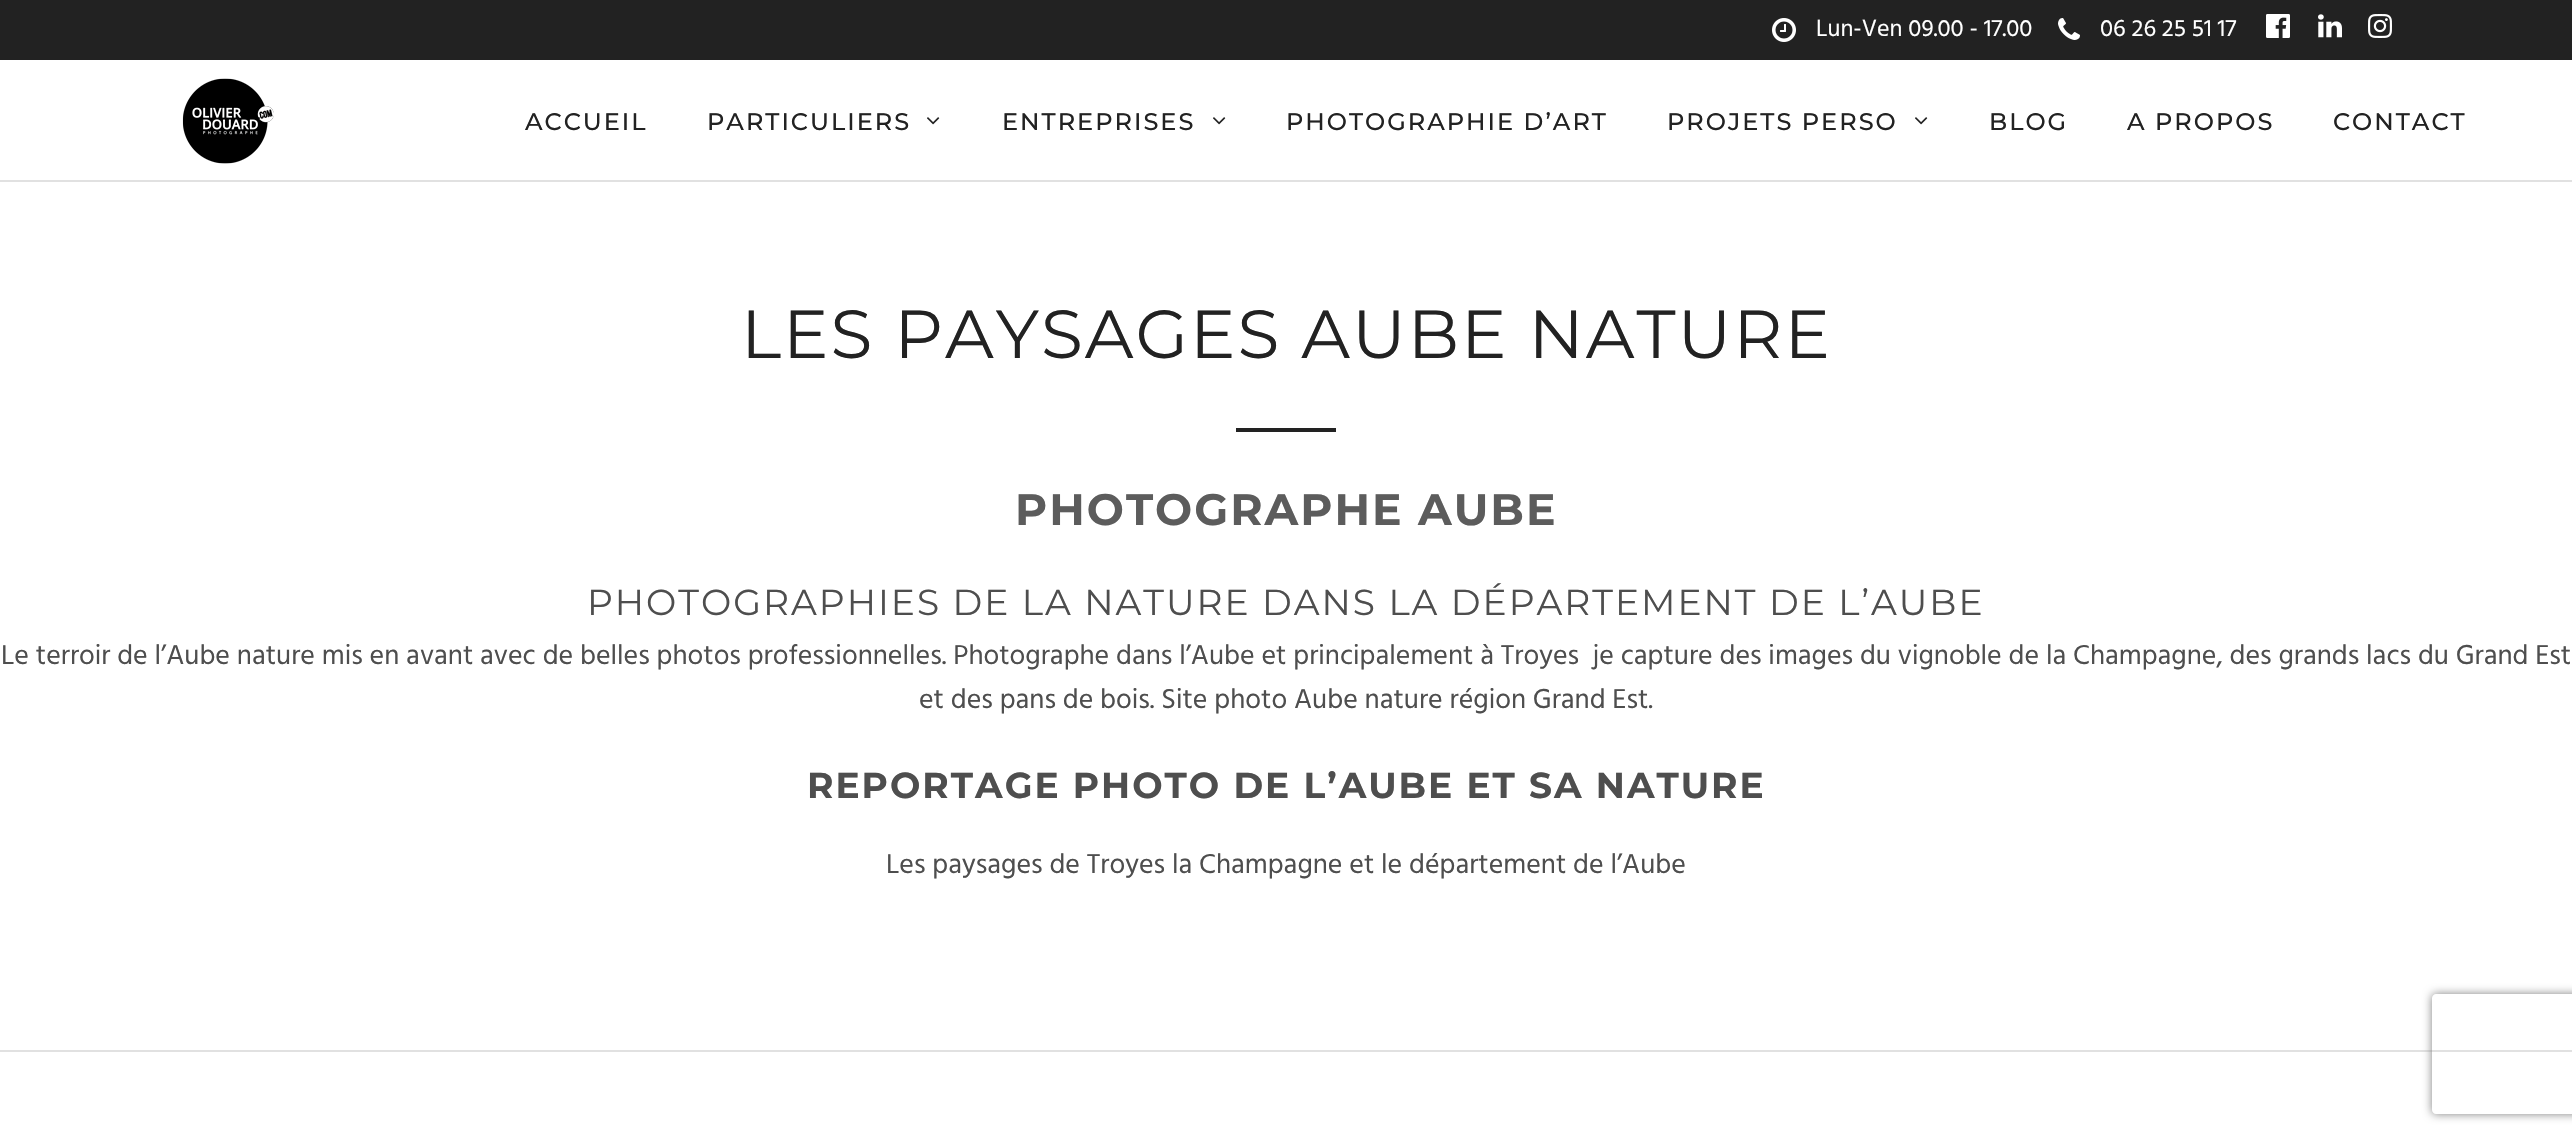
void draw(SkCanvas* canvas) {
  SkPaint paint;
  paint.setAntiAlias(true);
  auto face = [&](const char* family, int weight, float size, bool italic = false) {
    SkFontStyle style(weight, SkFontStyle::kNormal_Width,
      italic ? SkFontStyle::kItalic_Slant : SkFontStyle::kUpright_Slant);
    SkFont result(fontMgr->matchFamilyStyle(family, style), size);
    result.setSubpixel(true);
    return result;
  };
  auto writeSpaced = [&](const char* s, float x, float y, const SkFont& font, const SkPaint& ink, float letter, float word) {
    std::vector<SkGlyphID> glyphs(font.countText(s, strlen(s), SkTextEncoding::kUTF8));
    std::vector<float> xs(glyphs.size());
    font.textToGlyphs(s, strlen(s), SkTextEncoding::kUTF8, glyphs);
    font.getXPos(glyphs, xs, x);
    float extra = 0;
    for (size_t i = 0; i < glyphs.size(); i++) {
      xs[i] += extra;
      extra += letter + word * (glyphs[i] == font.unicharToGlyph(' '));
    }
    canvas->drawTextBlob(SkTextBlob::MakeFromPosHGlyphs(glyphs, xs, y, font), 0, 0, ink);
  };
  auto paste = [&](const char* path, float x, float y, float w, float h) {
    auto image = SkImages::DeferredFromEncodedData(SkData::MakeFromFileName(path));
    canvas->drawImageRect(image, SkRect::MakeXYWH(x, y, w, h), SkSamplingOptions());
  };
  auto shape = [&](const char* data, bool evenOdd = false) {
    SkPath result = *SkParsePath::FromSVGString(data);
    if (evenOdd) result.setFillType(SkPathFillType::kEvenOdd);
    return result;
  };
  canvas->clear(0xffffffff);
  paint.setColor(0xff222222);
  canvas->drawRect(SkRect::MakeXYWH(0, 0, 2572, 60), paint);
  paste("img/1.png", 1772, 18, 24, 24);
  paste("img/2.png", 2058, 18, 22, 22);
  paste("img/3.png", 2266, 14, 24, 24);
  paste("img/4.png", 2318, 14, 24, 24);
  paste("img/5.png", 2368, 14, 24, 24);
  paint.setColor(0xffe1e1e1);
  canvas->drawRect(SkRect::MakeXYWH(0, 180, 2572, 2), paint);
  paste("img/6.png", 182, 78, 92, 86);
  paste("img/7.png", 927, 117, 13, 8);
  paste("img/7.png", 1213, 117, 13, 8);
  paste("img/7.png", 1915, 117, 13, 8);
  canvas->drawRect(SkRect::MakeXYWH(0, 1050, 2572, 2), paint);
  paint.setColor(0xff222222);
  canvas->drawRect(SkRect::MakeXYWH(1236, 428, 100, 4), paint);
  canvas->save();
  canvas->clipPath(shape("M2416 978H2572V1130H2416ZM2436 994H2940C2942 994 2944 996 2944 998V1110C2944 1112 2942 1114 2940 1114H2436C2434 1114 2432 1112 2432 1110V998C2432 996 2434 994 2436 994Z", true), true);
  paint.setColor(0xff808080);
  paint.setMaskFilter(SkMaskFilter::MakeBlur(kNormal_SkBlurStyle, 5));
  canvas->drawRoundRect(SkRect::MakeXYWH(2432, 994, 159, 120), 4, 4, paint);
  paint.setMaskFilter(nullptr);
  canvas->restore();
  auto f0 = face("Hind", 400, 24);
  paint.setColor(0xffffffff);
  canvas->drawString("Lun-Ven 09.00 - 17.00", 1816, 36, f0, paint);
  canvas->drawString("06 26 25 51 17", 2100, 36, f0, paint);
  auto f1 = face("Montserrat", 500, 24);
  paint.setColor(0xff222222);
  {
    const struct { const char* s; float x, y; } items[] = {
      {"ACCUEIL", 525, 130},
      {"PARTICULIERS", 707, 130},
      {"ENTREPRISES", 1002, 130},
      {"PHOTOGRAPHIE D’ART", 1286, 130},
      {"PROJETS PERSO", 1667, 130},
      {"BLOG", 1989, 130},
      {"A PROPOS", 2127, 130},
      {"CONTACT", 2333, 130},
    };
    for (auto [s, x, y] : items) {
      writeSpaced(s, x, y, f1, paint, 2, 0);
    }
  }
  auto f2 = face("Montserrat", 400, 68);
  writeSpaced("LES PAYSAGES AUBE NATURE", 741, 358, f2, paint, 2, 0);
  auto f3 = face("Montserrat", 700, 44);
  paint.setColor(0xff5c5c5c);
  writeSpaced("PHOTOGRAPHE AUBE", 1015, 525, f3, paint, 2, 0);
  auto f4 = face("Montserrat", 400, 36);
  paint.setColor(0xff4e4e4e);
  writeSpaced("PHOTOGRAPHIES DE LA NATURE DANS LA DÉPARTEMENT DE L’AUBE", 587, 615, f4, paint, 2, 0);
  auto f5 = face("Hind", 400, 28);
  canvas->drawString("Le terroir de l’Aube nature mis en avant avec de belles photos professionnelles. Photographe dans l’Aube et principalement à Troyes  je capture des images du vignoble de la Champagne, des grands lacs du Grand Est", 1, 664, f5, paint);
  canvas->drawString("et des pans de bois. Site photo Aube nature région Grand Est.", 919, 708, f5, paint);
  auto f6 = face("Montserrat", 700, 36);
  writeSpaced("REPORTAGE PHOTO DE L’AUBE ET SA NATURE", 807, 798, f6, paint, 2, 0);
  canvas->drawString("Les paysages de Troyes la Champagne et le département de l’Aube", 886, 873, f5, paint);
}
